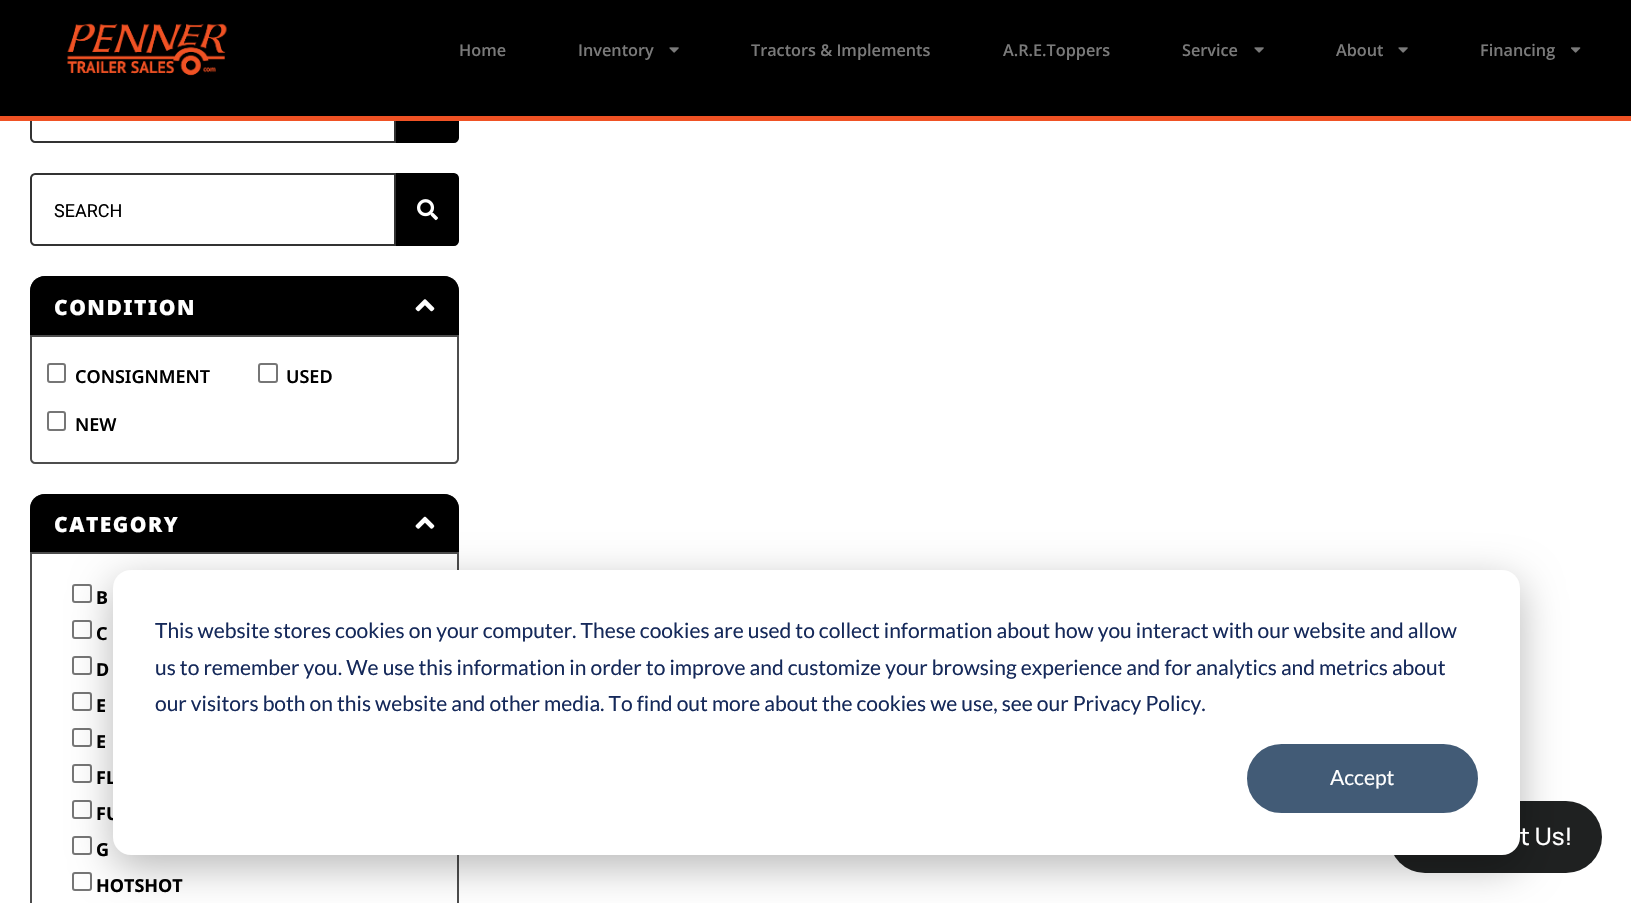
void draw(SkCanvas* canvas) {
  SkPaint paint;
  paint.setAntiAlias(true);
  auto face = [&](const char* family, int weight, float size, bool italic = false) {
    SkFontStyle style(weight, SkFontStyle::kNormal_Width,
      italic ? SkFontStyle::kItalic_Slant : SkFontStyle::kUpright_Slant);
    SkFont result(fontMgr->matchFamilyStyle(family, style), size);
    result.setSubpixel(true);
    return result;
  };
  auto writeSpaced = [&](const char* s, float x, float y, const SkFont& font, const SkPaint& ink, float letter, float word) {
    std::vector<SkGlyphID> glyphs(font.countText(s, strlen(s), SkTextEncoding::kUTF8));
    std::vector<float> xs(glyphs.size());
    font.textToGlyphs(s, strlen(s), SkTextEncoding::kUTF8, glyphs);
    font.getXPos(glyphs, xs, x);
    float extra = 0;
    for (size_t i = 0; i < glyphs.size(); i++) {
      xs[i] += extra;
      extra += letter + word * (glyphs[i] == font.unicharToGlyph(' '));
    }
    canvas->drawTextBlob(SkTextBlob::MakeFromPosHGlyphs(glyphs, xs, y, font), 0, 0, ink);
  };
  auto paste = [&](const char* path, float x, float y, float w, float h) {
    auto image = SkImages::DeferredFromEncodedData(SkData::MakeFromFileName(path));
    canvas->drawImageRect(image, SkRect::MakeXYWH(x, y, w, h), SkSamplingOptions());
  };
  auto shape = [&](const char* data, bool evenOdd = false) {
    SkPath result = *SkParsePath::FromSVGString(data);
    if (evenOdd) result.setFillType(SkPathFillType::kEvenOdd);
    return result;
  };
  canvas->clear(0xffffffff);
  paint.setStroke(true);
  paint.setStrokeWidth(2);
  paint.setColor(0xff333333);
  canvas->drawPath(shape("M35 70H395V142H35C33 142 31 140 31 138V74C31 72 33 70 35 70Z"), paint);
  paint.setStroke(false);
  paint.setColor(0xff000000);
  canvas->drawPath(shape("M397 70H454C456 70 458 72 458 74V138C458 140 456 142 454 142H397Z"), paint);
  paint.setStroke(true);
  canvas->drawPath(shape("M397 70H454C456 70 458 72 458 74V138C458 140 456 142 454 142H397Z"), paint);
  paint.setStroke(false);
  canvas->drawRect(SkRect::MakeXYWH(0, 0, 1631, 116), paint);
  paint.setColor(0xfff05224);
  canvas->drawRect(SkRect::MakeXYWH(0, 116, 1631, 5), paint);
  paste("img/1.png", 67, 23, 160, 53);
  paste("img/2.png", 669, 47, 10, 6);
  paste("img/2.png", 1254, 47, 10, 6);
  paste("img/2.png", 1398, 47, 10, 6);
  paste("img/3.png", 1571, 47, 10, 6);
  paint.setStroke(true);
  paint.setColor(0xff333333);
  canvas->drawPath(shape("M35 174H395V245H35C33 245 31 243 31 241V178C31 176 33 174 35 174Z"), paint);
  paint.setStroke(false);
  paint.setColor(0xff000000);
  canvas->drawPath(shape("M397 174H454C456 174 458 176 458 178V241C458 243 456 245 454 245H397Z"), paint);
  paint.setStroke(true);
  canvas->drawPath(shape("M397 174H454C456 174 458 176 458 178V241C458 243 456 245 454 245H397Z"), paint);
  paste("img/4.png", 417, 199, 21, 22);
  paint.setStroke(false);
  canvas->drawPath(shape("M45 276H444C452.5 276 459 282.5 459 291V335H30V291C30 282.5 36.5 276 45 276Z"), paint);
  paint.setColor(0xb3000000);
  canvas->drawPath(shape("M45 276H444C452 276 459 283 459 291V334H30V291C30 283 37 276 45 276ZM45 278H444C451 278 458 284 458 291V334H32V291C32 284 38 278 45 278Z", true), paint);
  paste("img/5.png", 415, 299, 20, 13);
  paint.setStroke(true);
  paint.setColor(0xff4d4d4d);
  canvas->drawPath(shape("M31 336H458V459C458 461 456 463 454 463H35C33 463 31 461 31 459Z"), paint);
  paint.setColor(0xff767676);
  canvas->drawRoundRect(SkRect::MakeXYWH(48, 364, 17, 18), 2, 2, paint);
  canvas->drawRoundRect(SkRect::MakeXYWH(259, 364, 18, 18), 2, 2, paint);
  canvas->drawRoundRect(SkRect::MakeXYWH(48, 412, 17, 18), 2, 2, paint);
  paint.setStroke(false);
  paint.setColor(0xff000000);
  canvas->drawPath(shape("M45 494H444C452.5 494 459 500.5 459 509V552H30V509C30 500.5 36.5 494 45 494Z"), paint);
  paint.setColor(0xb3000000);
  canvas->drawPath(shape("M45 494H444C452 494 459 500 459 508V552H30V508C30 500 37 494 45 494ZM45 495H444C451 495 458 501 458 508V552H32V508C32 501 38 495 45 495Z", true), paint);
  paste("img/6.png", 415, 516, 20, 13);
  paint.setStroke(true);
  paint.setColor(0xff4d4d4d);
  canvas->drawRect(SkRect::MakeXYWH(31, 553, 427, 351), paint);
  paint.setColor(0xff767676);
  canvas->drawRoundRect(SkRect::MakeXYWH(73, 585, 18, 17), 2, 2, paint);
  canvas->drawRoundRect(SkRect::MakeXYWH(73, 621, 18, 17), 2, 2, paint);
  canvas->drawRoundRect(SkRect::MakeXYWH(73, 657, 18, 17), 2, 2, paint);
  canvas->drawRoundRect(SkRect::MakeXYWH(73, 693, 18, 17), 2, 2, paint);
  canvas->drawRoundRect(SkRect::MakeXYWH(73, 729, 18, 17), 2, 2, paint);
  canvas->drawRoundRect(SkRect::MakeXYWH(73, 765, 18, 17), 2, 2, paint);
  canvas->drawRoundRect(SkRect::MakeXYWH(73, 801, 18, 17), 2, 2, paint);
  canvas->drawRoundRect(SkRect::MakeXYWH(73, 837, 18, 17), 2, 2, paint);
  canvas->drawRoundRect(SkRect::MakeXYWH(73, 873, 18, 17), 2, 2, paint);
  paint.setStroke(false);
  paint.setColor(0xff1f2121);
  canvas->drawRoundRect(SkRect::MakeXYWH(1389, 801, 213, 72), 36, 36, paint);
  paint.setColor(0x47000000);
  paint.setMaskFilter(SkMaskFilter::MakeBlur(kNormal_SkBlurStyle, 21));
  canvas->drawRoundRect(SkRect::MakeXYWH(113, 582, 1407, 285), 18, 18, paint);
  paint.setMaskFilter(nullptr);
  auto f0 = face("Open Sans", 600, 16.25f);
  paint.setColor(0xff7a7a7a);
  {
    const struct { const char* s; float x, y; } items[] = {
      {"Home", 459, 56},
      {"Inventory", 578, 56},
      {"Tractors & Implements", 751, 56},
      {"A.R.E.Toppers", 1003, 56},
      {"Service", 1182, 56},
      {"About", 1336, 56},
      {"Financing", 1480, 56},
    };
    for (auto [s, x, y] : items) {
      canvas->drawString(s, x, y, f0, paint);
    }
  }
  auto f1 = face("Roboto", 400, 18);
  paint.setColor(0xff000000);
  canvas->drawString("SEARCH", 54, 217, f1, paint);
  auto f2 = face("Noto Sans", 900, 21);
  paint.setColor(0xffffffff);
  writeSpaced("CONDITION", 54, 315, f2, paint, 1.5f, 0);
  auto f3 = face("Noto Sans", 600, 18);
  paint.setColor(0xff000000);
  {
    const struct { const char* s; float x, y; } items[] = {
      {"CONSIGNMENT", 75, 383},
      {"USED", 286, 383},
      {"NEW", 75, 431},
    };
    for (auto [s, x, y] : items) {
      canvas->drawString(s, x, y, f3, paint);
    }
  }
  paint.setColor(0xffffffff);
  writeSpaced("CATEGORY", 54, 532, f2, paint, 1.5f, 0);
  auto f4 = face("Noto Sans", 700, 18);
  paint.setColor(0xff000000);
  {
    const struct { const char* s; float x, y; } items[] = {
      {"B", 96, 604},
      {"C", 96, 640},
      {"D", 96, 676},
      {"E", 96, 712},
      {"E", 96, 748},
      {"FL", 96, 784},
      {"FU", 96, 820},
      {"G", 96, 856},
      {"HOTSHOT", 96, 892},
    };
    for (auto [s, x, y] : items) {
      canvas->drawString(s, x, y, f4, paint);
    }
  }
  paint.setColor(0xffffffff);
  canvas->drawRoundRect(SkRect::MakeXYWH(113, 570, 1407, 285), 18, 18, paint);
  auto f5 = face("Lato", 400, 21);
  paint.setColor(0xff15295a);
  {
    const struct { const char* s; float x, y; } items[] = {
      {"This website stores cookies on your computer. These cookies are used to collect information about how you interact with our website and allow", 155, 638},
      {"us to remember you. We use this information in order to improve and customize your browsing experience and for analytics and metrics about", 155, 675},
      {"our visitors both on this website and other media. To find out more about the cookies we use, see our Privacy Policy.", 155, 711},
    };
    for (auto [s, x, y] : items) {
      canvas->drawString(s, x, y, f5, paint);
    }
  }
  paint.setColor(0xff425b76);
  canvas->drawRoundRect(SkRect::MakeXYWH(1248, 745, 229, 67), 33.5f, 33.5f, paint);
  paint.setStroke(true);
  canvas->drawRoundRect(SkRect::MakeXYWH(1248, 745, 229, 67), 33.5f, 33.5f, paint);
  paint.setStroke(false);
  paint.setColor(0xffffffff);
  canvas->drawString("Accept", 1330, 785, f5, paint);
  auto f6 = face("Manrope", 500, 24);
  canvas->drawString("t Us!", 1520, 845, f6, paint);
}
